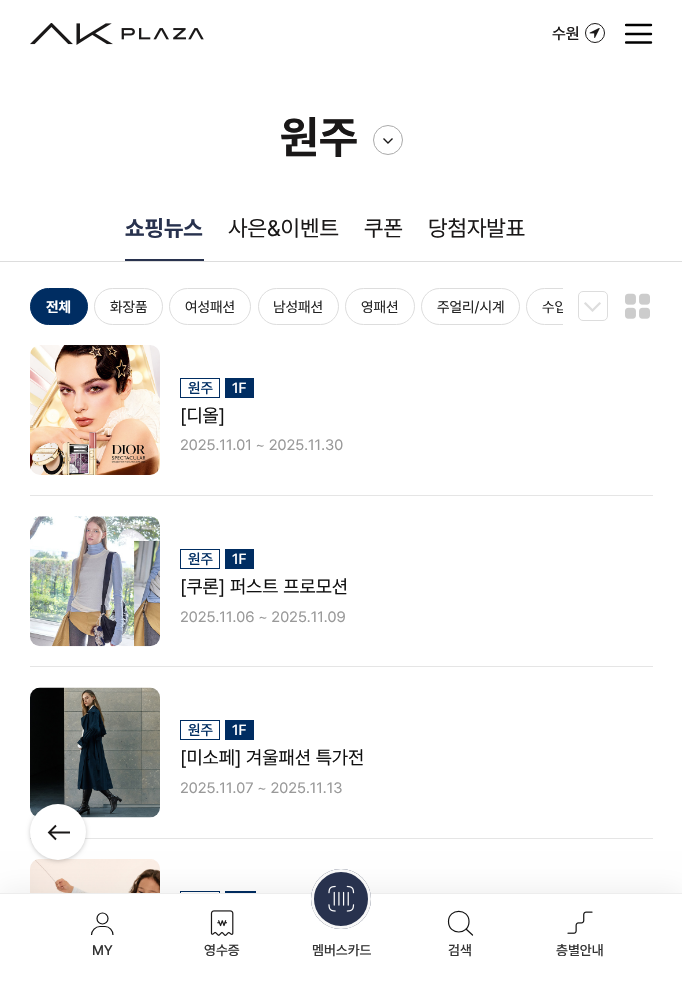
void draw(SkCanvas* canvas) {
  SkPaint paint;
  paint.setAntiAlias(true);
  auto face = [&](const char* family, int weight, float size, bool italic = false) {
    SkFontStyle style(weight, SkFontStyle::kNormal_Width,
      italic ? SkFontStyle::kItalic_Slant : SkFontStyle::kUpright_Slant);
    SkFont result(fontMgr->matchFamilyStyle(family, style), size);
    result.setSubpixel(true);
    return result;
  };
  auto paste = [&](const char* path, float x, float y, float w, float h) {
    auto image = SkImages::DeferredFromEncodedData(SkData::MakeFromFileName(path));
    canvas->drawImageRect(image, SkRect::MakeXYWH(x, y, w, h), SkSamplingOptions());
  };
  auto shape = [&](const char* data, bool evenOdd = false) {
    SkPath result = *SkParsePath::FromSVGString(data);
    if (evenOdd) result.setFillType(SkPathFillType::kEvenOdd);
    return result;
  };
  canvas->clear(0xffffffff);
  paste("img/1.png", 30, 23, 174, 22);
  paste("img/2.png", 589, 28, 11, 10);
  paint.setStroke(true);
  paint.setStrokeWidth(1);
  paint.setColor(0xff1a1818);
  canvas->drawCircle(595, 33, 9.5f, paint);
  canvas->save();
  canvas->clipRect(SkRect::MakeXYWH(625, 21, 28, 25));
  paint.setStrokeWidth(2.4f);
  paint.setStrokeCap(SkPaint::kRound_Cap);
  paint.setStrokeJoin(SkPaint::kRound_Join);
  paint.setColor(0xff000000);
  canvas->drawPath(shape("M626 25H651M626 34H651M626 42.5H651"), paint);
  canvas->restore();
  paint.setStrokeWidth(1);
  paint.setStrokeCap(SkPaint::kButt_Cap);
  paint.setStrokeJoin(SkPaint::kMiter_Join);
  paint.setColor(0xffaaaaaa);
  canvas->drawCircle(388, 140, 14.5f, paint);
  paint.setStrokeWidth(1.4f);
  paint.setColor(0xff1a1818);
  canvas->drawPath(shape("M383.5 138.5L388 143L392.5 138.5"), paint);
  paint.setStroke(false);
  paint.setColor(0xffdddddd);
  canvas->drawRect(SkRect::MakeXYWH(0, 261, 682, 1), paint);
  paint.setColor(0xff28324e);
  canvas->drawRect(SkRect::MakeXYWH(125, 259, 79, 2), paint);
  paint.setColor(0xff002d62);
  canvas->drawRoundRect(SkRect::MakeXYWH(30.5f, 288.5f, 57, 36), 18, 18, paint);
  paint.setStroke(true);
  paint.setStrokeWidth(1);
  canvas->drawRoundRect(SkRect::MakeXYWH(30.5f, 288.5f, 57, 36), 18, 18, paint);
  paint.setColor(0xffdddddd);
  canvas->drawRoundRect(SkRect::MakeXYWH(94.5f, 288.5f, 68, 36), 18, 18, paint);
  canvas->drawRoundRect(SkRect::MakeXYWH(169.5f, 288.5f, 81, 36), 18, 18, paint);
  canvas->drawRoundRect(SkRect::MakeXYWH(258.5f, 288.5f, 80, 36), 18, 18, paint);
  canvas->drawRoundRect(SkRect::MakeXYWH(345.5f, 288.5f, 69, 36), 18, 18, paint);
  canvas->drawRoundRect(SkRect::MakeXYWH(421.5f, 288.5f, 98, 36), 18, 18, paint);
  canvas->save();
  canvas->clipRect(SkRect::MakeXYWH(30, 288, 533, 37));
  canvas->drawRoundRect(SkRect::MakeXYWH(526.5f, 288.5f, 86, 36), 18, 18, paint);
  canvas->restore();
  paint.setStrokeWidth(2.2f);
  paint.setStrokeCap(SkPaint::kSquare_Cap);
  canvas->drawPath(shape("M599.5 303.5L592.5 310.5L585.5 303.5"), paint);
  paint.setStrokeWidth(1);
  paint.setStrokeCap(SkPaint::kButt_Cap);
  canvas->drawRoundRect(SkRect::MakeXYWH(578.5f, 291.5f, 29, 29), 4.5f, 4.5f, paint);
  paste("img/3.png", 625, 293, 25, 26);
  paste("img/4.png", 30, 345, 130, 130);
  paint.setColor(0xff002d62);
  canvas->drawRect(SkRect::MakeXYWH(180.5f, 378.5f, 39, 19), paint);
  paint.setStroke(false);
  canvas->drawRect(SkRect::MakeXYWH(225, 378, 29, 20), paint);
  paint.setColor(0xffe5e5e5);
  canvas->drawRect(SkRect::MakeXYWH(30, 495, 623, 1), paint);
  paste("img/5.png", 30, 516, 130, 131);
  paint.setStroke(true);
  paint.setColor(0xff002d62);
  canvas->drawRect(SkRect::MakeXYWH(180.5f, 549.5f, 39, 19), paint);
  paint.setStroke(false);
  canvas->drawRect(SkRect::MakeXYWH(225, 549, 29, 20), paint);
  paint.setColor(0xffe5e5e5);
  canvas->drawRect(SkRect::MakeXYWH(30, 666, 623, 1), paint);
  paste("img/6.png", 30, 687, 130, 131);
  paint.setStroke(true);
  paint.setColor(0xff002d62);
  canvas->drawRect(SkRect::MakeXYWH(180.5f, 720.5f, 39, 19), paint);
  paint.setStroke(false);
  canvas->drawRect(SkRect::MakeXYWH(225, 720, 29, 20), paint);
  paint.setColor(0xffe5e5e5);
  canvas->drawRect(SkRect::MakeXYWH(30, 838, 623, 1), paint);
  paste("img/7.png", 30, 859, 130, 34);
  paint.setStroke(true);
  paint.setColor(0xff002d62);
  canvas->drawRect(SkRect::MakeXYWH(180.5f, 891.5f, 39, 19), paint);
  paint.setStroke(false);
  canvas->drawRect(SkRect::MakeXYWH(225, 891, 31, 2), paint);
  paint.setColor(0x0f000000);
  paint.setMaskFilter(SkMaskFilter::MakeBlur(kNormal_SkBlurStyle, 12.5f));
  canvas->drawRect(SkRect::MakeXYWH(0, 888, 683, 100), paint);
  paint.setMaskFilter(nullptr);
  paint.setColor(0xffffffff);
  canvas->drawRect(SkRect::MakeXYWH(0, 894, 682, 98), paint);
  paint.setColor(0xffededed);
  canvas->drawRect(SkRect::MakeXYWH(0, 893, 682, 1), paint);
  paint.setColor(0x33000000);
  paint.setMaskFilter(SkMaskFilter::MakeBlur(kNormal_SkBlurStyle, 2));
  canvas->drawRoundRect(SkRect::MakeXYWH(30, 805, 56, 56), 28, 28, paint);
  paint.setMaskFilter(nullptr);
  paint.setColor(0xffffffff);
  canvas->drawCircle(58, 832, 28, paint);
  paint.setStroke(true);
  paint.setStrokeWidth(1.9f);
  paint.setColor(0xff1a1818);
  canvas->drawPath(shape("M56 839.5L49 832.5L56 825.5M50 832.5H70"), paint);
  paint.setStrokeWidth(1.2f);
  paint.setColor(0xff111111);
  canvas->drawCircle(102.5f, 918.5f, 5.5f, paint);
  canvas->drawPath(shape("M113 935C113 930.5 109.5 926.5 105 926.5H100C95.5 926.5 91.5 930.5 91.5 935"), paint);
  paste("img/8.png", 210, 910, 24, 26);
  paint.setStroke(false);
  paint.setColor(0xff28324e);
  canvas->drawCircle(341, 899, 30, paint);
  paste("img/9.png", 328, 885, 27, 27);
  paint.setStroke(true);
  paint.setStrokeWidth(3);
  paint.setColor(0xfff8f8f8);
  canvas->drawCircle(341, 899, 28.5f, paint);
  paint.setStrokeWidth(1.2f);
  paint.setStrokeCap(SkPaint::kRound_Cap);
  paint.setStrokeJoin(SkPaint::kRound_Join);
  paint.setColor(0xff111111);
  canvas->drawPath(shape("M448.5 921.5C448.5 935.5 469 935.5 469 921.5C469 908 448.5 908 448.5 921.5ZM472.5 935L466 929"), paint);
  paste("img/10.png", 567, 911, 26, 23);
  auto f0 = face("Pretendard", 500, 16);
  paint.setStroke(false);
  paint.setColor(0xff1a1818);
  canvas->drawString("수원", 552, 39, f0, paint);
  auto f1 = face("Pretendard", 700, 45);
  canvas->drawString("원주", 280, 153, f1, paint);
  auto f2 = face("Pretendard", 700, 22.5f);
  paint.setColor(0xff28324e);
  canvas->drawString("쇼핑뉴스", 125, 236, f2, paint);
  auto f3 = face("Pretendard", 400, 22.5f);
  paint.setColor(0xff1a1818);
  {
    const struct { const char* s; float x, y; } items[] = {
      {"사은&이벤트", 228, 236},
      {"쿠폰", 364, 236},
      {"당첨자발표", 428, 236},
    };
    for (auto [s, x, y] : items) {
      canvas->drawString(s, x, y, f3, paint);
    }
  }
  auto f4 = face("Pretendard", 700, 14.5f);
  paint.setColor(0xffffffff);
  canvas->drawString("전체", 46, 312, f4, paint);
  auto f5 = face("Pretendard", 400, 14.5f);
  paint.setColor(0xff222222);
  {
    const struct { const char* s; float x, y; } items[] = {
      {"화장품", 110, 312},
      {"여성패션", 185, 312},
      {"남성패션", 273, 312},
      {"영패션", 361, 312},
      {"주얼리/시계", 437, 312},
    };
    for (auto [s, x, y] : items) {
      canvas->drawString(s, x, y, f5, paint);
    }
  }
  canvas->save();
  canvas->clipRect(SkRect::MakeXYWH(30, 288, 533, 37));
  canvas->drawString("수입", 542, 312, f5, paint);
  canvas->restore();
  auto f6 = face("Pretendard", 500, 14.5f);
  paint.setColor(0xff002d62);
  canvas->drawString("원주", 188, 393, f6, paint);
  paint.setColor(0xffffffff);
  canvas->drawString("1F", 232, 393, f6, paint);
  auto f7 = face("Pretendard", 400, 18.75f);
  paint.setColor(0xff111111);
  canvas->drawString("[디올]", 180, 422, f7, paint);
  auto f8 = face("Pretendard", 400, 15);
  paint.setColor(0xff999999);
  canvas->drawString("2025.11.01 ~ 2025.11.30", 180, 450, f8, paint);
  paint.setColor(0xff002d62);
  canvas->drawString("원주", 188, 564, f6, paint);
  paint.setColor(0xffffffff);
  canvas->drawString("1F", 232, 564, f6, paint);
  paint.setColor(0xff111111);
  canvas->drawString("[쿠론] 퍼스트 프로모션", 180, 593, f7, paint);
  paint.setColor(0xff999999);
  canvas->drawString("2025.11.06 ~ 2025.11.09", 180, 622, f8, paint);
  paint.setColor(0xff002d62);
  canvas->drawString("원주", 188, 735, f6, paint);
  paint.setColor(0xffffffff);
  canvas->drawString("1F", 232, 735, f6, paint);
  paint.setColor(0xff111111);
  canvas->drawString("[미소페] 겨울패션 특가전", 180, 764, f7, paint);
  paint.setColor(0xff999999);
  canvas->drawString("2025.11.07 ~ 2025.11.13", 180, 793, f8, paint);
  auto f9 = face("Pretendard", 500, 13.75f);
  paint.setColor(0xff333333);
  {
    const struct { const char* s; float x, y; } items[] = {
      {"MY", 92, 955},
      {"영수증", 204, 955},
      {"멤버스카드", 312, 955},
      {"검색", 448, 955},
      {"층별안내", 556, 955},
    };
    for (auto [s, x, y] : items) {
      canvas->drawString(s, x, y, f9, paint);
    }
  }
}
